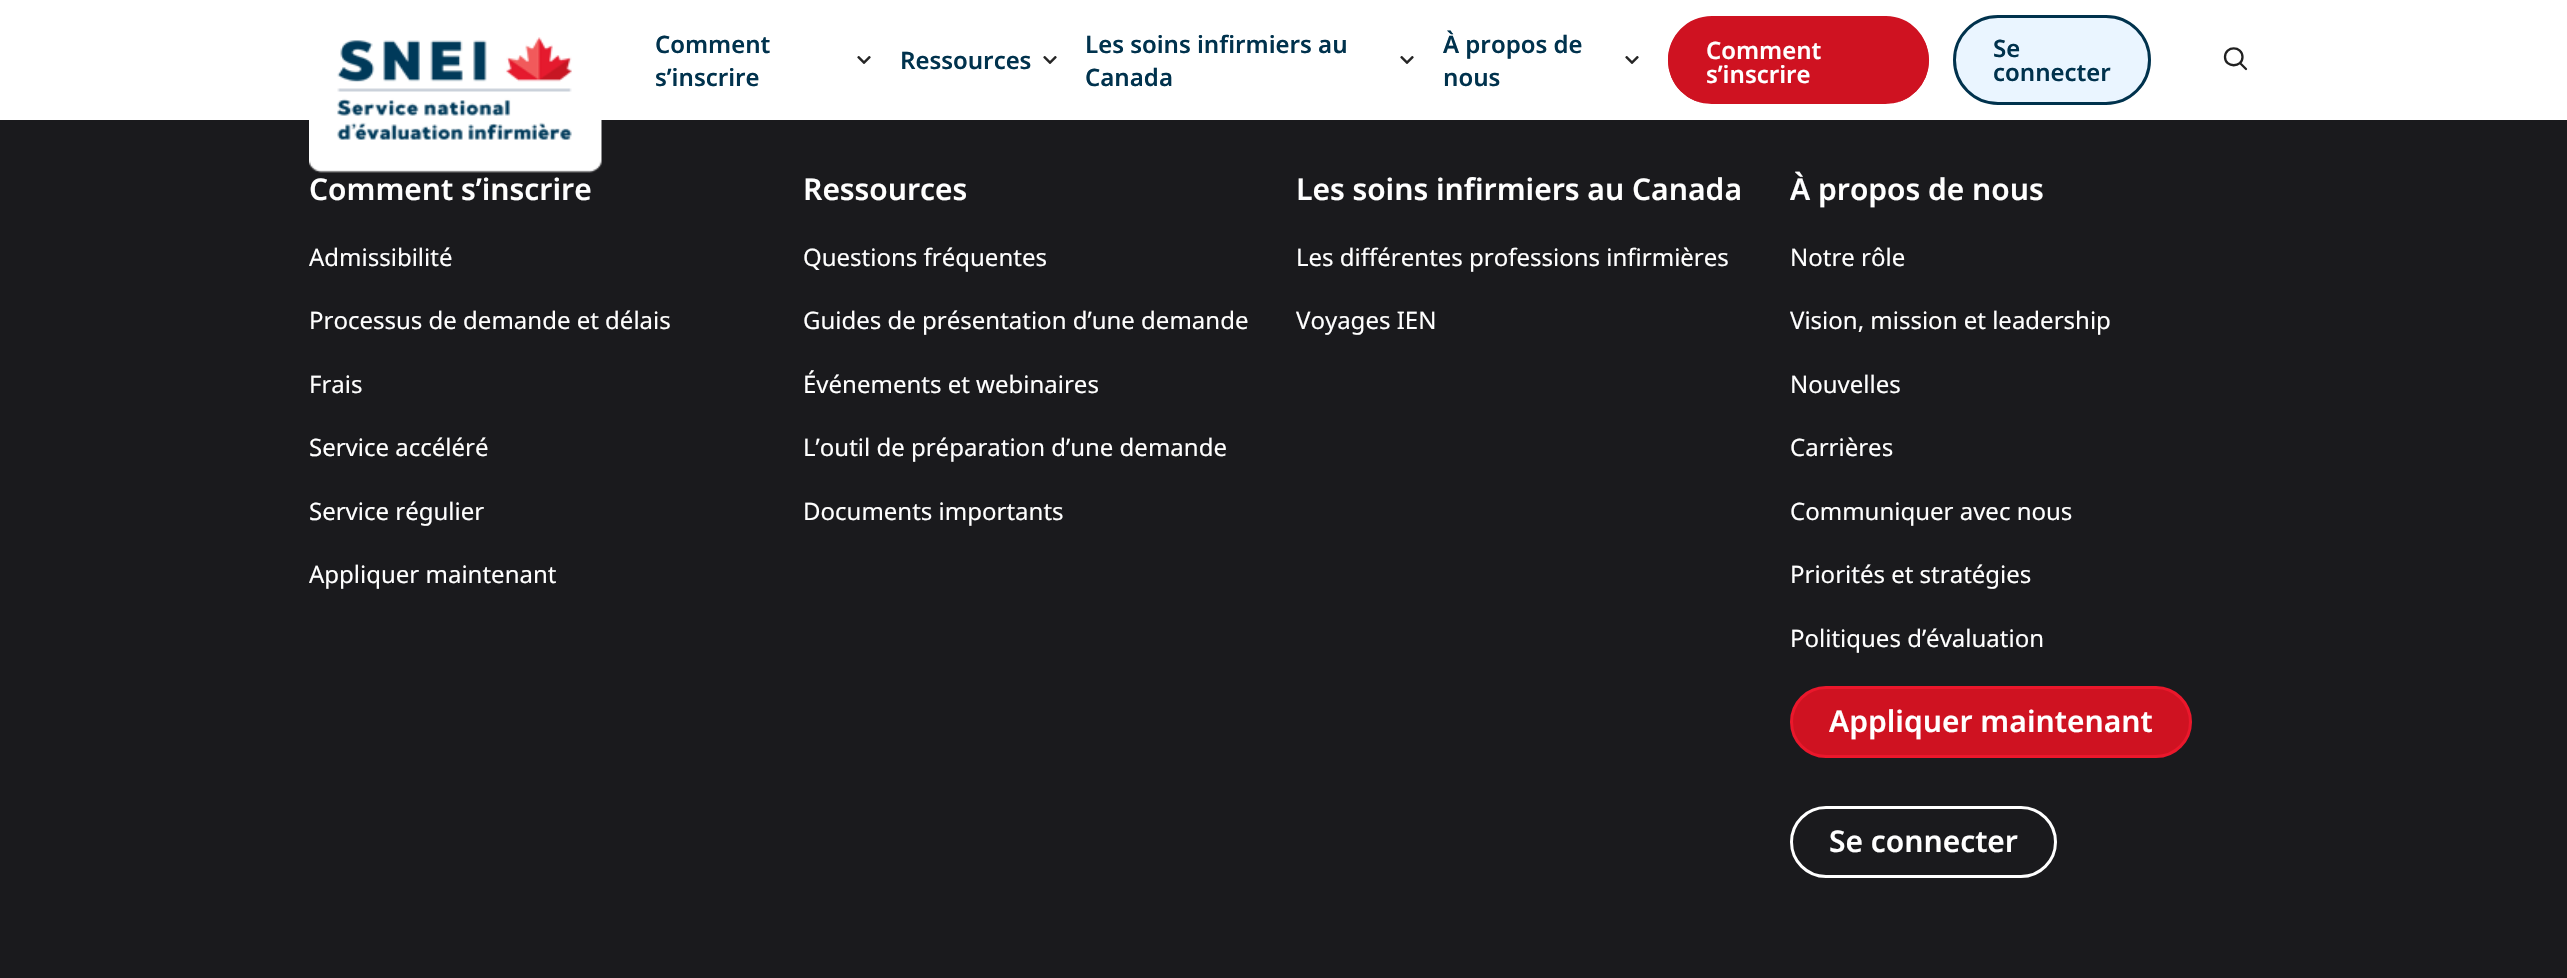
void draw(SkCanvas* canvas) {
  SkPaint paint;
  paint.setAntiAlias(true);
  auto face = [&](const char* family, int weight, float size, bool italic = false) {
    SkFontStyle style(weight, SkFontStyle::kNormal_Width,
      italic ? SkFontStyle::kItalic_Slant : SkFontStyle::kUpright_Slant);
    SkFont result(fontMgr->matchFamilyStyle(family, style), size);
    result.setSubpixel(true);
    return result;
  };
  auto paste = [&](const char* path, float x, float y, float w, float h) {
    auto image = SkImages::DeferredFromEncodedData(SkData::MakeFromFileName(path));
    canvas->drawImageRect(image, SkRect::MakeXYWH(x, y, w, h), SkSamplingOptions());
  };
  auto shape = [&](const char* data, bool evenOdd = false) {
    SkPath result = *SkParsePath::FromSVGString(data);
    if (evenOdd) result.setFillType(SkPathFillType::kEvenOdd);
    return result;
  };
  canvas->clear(0xffffffff);
  paint.setColor(0xff1a1a1d);
  canvas->drawRect(SkRect::MakeXYWH(0, 120, 2567, 858), paint);
  paste("img/1.png", 309, 37, 293, 136);
  paste("img/2.png", 857, 56, 14, 8);
  paste("img/2.png", 1043, 56, 14, 8);
  paste("img/2.png", 1400, 56, 14, 8);
  paste("img/2.png", 1625, 56, 14, 8);
  paint.setColor(0xffcf1221);
  canvas->drawRoundRect(SkRect::MakeXYWH(1668, 17, 261, 87), 43.5f, 43.5f, paint);
  canvas->drawPath(shape("M1712 16H1886C1910 16 1929 36 1929 60C1929 84 1910 104 1886 104H1712C1687 104 1668 84 1668 60C1668 36 1687 16 1712 16ZM1712 20H1886C1908 20 1926 38 1926 60C1926 84 1908 104 1886 104H1712C1689 104 1671 84 1671 60C1671 38 1689 20 1712 20Z", true), paint);
  paint.setColor(0xffeaf5ff);
  canvas->drawRoundRect(SkRect::MakeXYWH(1954.5f, 16.5f, 195, 87), 43.5f, 43.5f, paint);
  paint.setStroke(true);
  paint.setStrokeWidth(3);
  paint.setColor(0xff00324d);
  canvas->drawRoundRect(SkRect::MakeXYWH(1954.5f, 16.5f, 195, 87), 43.5f, 43.5f, paint);
  paint.setStrokeWidth(2.3f);
  paint.setStrokeCap(SkPaint::kRound_Cap);
  paint.setStrokeJoin(SkPaint::kRound_Join);
  paint.setColor(0xff212121);
  canvas->drawPath(shape("M2240 63L2246 69M2242.5 57C2242.5 68 2225 68 2225 57C2225 45.5 2242.5 45.5 2242.5 57Z"), paint);
  paint.setStroke(false);
  paint.setColor(0xffcf1221);
  canvas->drawRoundRect(SkRect::MakeXYWH(1791.5f, 687.5f, 399, 69), 34.5f, 34.5f, paint);
  paint.setStroke(true);
  paint.setStrokeWidth(3);
  paint.setStrokeCap(SkPaint::kButt_Cap);
  paint.setStrokeJoin(SkPaint::kMiter_Join);
  paint.setColor(0xffeb172b);
  canvas->drawRoundRect(SkRect::MakeXYWH(1791.5f, 687.5f, 399, 69), 34.5f, 34.5f, paint);
  paint.setColor(0xffffffff);
  canvas->drawRoundRect(SkRect::MakeXYWH(1791.5f, 807.5f, 264, 69), 34.5f, 34.5f, paint);
  auto f0 = face("Noto Sans", 600, 24);
  paint.setStroke(false);
  paint.setColor(0xff00324d);
  {
    const struct { const char* s; float x, y; } items[] = {
      {"Comment", 655, 53},
      {"s’inscrire", 655, 86},
      {"Ressources", 900, 69},
      {"Les soins infirmiers au", 1085, 53},
      {"Canada", 1085, 86},
      {"À propos de", 1443, 53},
      {"nous", 1443, 86},
    };
    for (auto [s, x, y] : items) {
      canvas->drawString(s, x, y, f0, paint);
    }
  }
  paint.setColor(0xffffffff);
  canvas->drawString("Comment", 1706, 59, f0, paint);
  canvas->drawString("s’inscrire", 1706, 83, f0, paint);
  paint.setColor(0xff00324d);
  canvas->drawString("Se", 1993, 57, f0, paint);
  canvas->drawString("connecter", 1993, 81, f0, paint);
  auto f1 = face("Noto Sans", 600, 30);
  paint.setColor(0xffffffff);
  canvas->drawString("Comment s’inscrire", 309, 200, f1, paint);
  auto f2 = face("Noto Sans", 400, 24);
  {
    const struct { const char* s; float x, y; } items[] = {
      {"Admissibilité", 309, 266},
      {"Processus de demande et délais", 309, 329},
      {"Frais", 309, 393},
      {"Service accéléré", 309, 456},
      {"Service régulier", 309, 520},
      {"Appliquer maintenant", 309, 583},
    };
    for (auto [s, x, y] : items) {
      canvas->drawString(s, x, y, f2, paint);
    }
  }
  canvas->drawString("Ressources", 803, 200, f1, paint);
  {
    const struct { const char* s; float x, y; } items[] = {
      {"Questions fréquentes", 803, 266},
      {"Guides de présentation d’une demande", 803, 329},
      {"Événements et webinaires", 803, 393},
      {"L’outil de préparation d’une demande", 803, 456},
      {"Documents importants", 803, 520},
    };
    for (auto [s, x, y] : items) {
      canvas->drawString(s, x, y, f2, paint);
    }
  }
  canvas->drawString("Les soins infirmiers au Canada", 1296, 200, f1, paint);
  canvas->drawString("Les différentes professions infirmières", 1296, 266, f2, paint);
  canvas->drawString("Voyages IEN", 1296, 329, f2, paint);
  canvas->drawString("À propos de nous", 1790, 200, f1, paint);
  {
    const struct { const char* s; float x, y; } items[] = {
      {"Notre rôle", 1790, 266},
      {"Vision, mission et leadership", 1790, 329},
      {"Nouvelles", 1790, 393},
      {"Carrières", 1790, 456},
      {"Communiquer avec nous", 1790, 520},
      {"Priorités et stratégies", 1790, 583},
      {"Politiques d’évaluation", 1790, 647},
    };
    for (auto [s, x, y] : items) {
      canvas->drawString(s, x, y, f2, paint);
    }
  }
  canvas->drawString("Appliquer maintenant", 1829, 732, f1, paint);
  canvas->drawString("Se connecter", 1829, 852, f1, paint);
}
